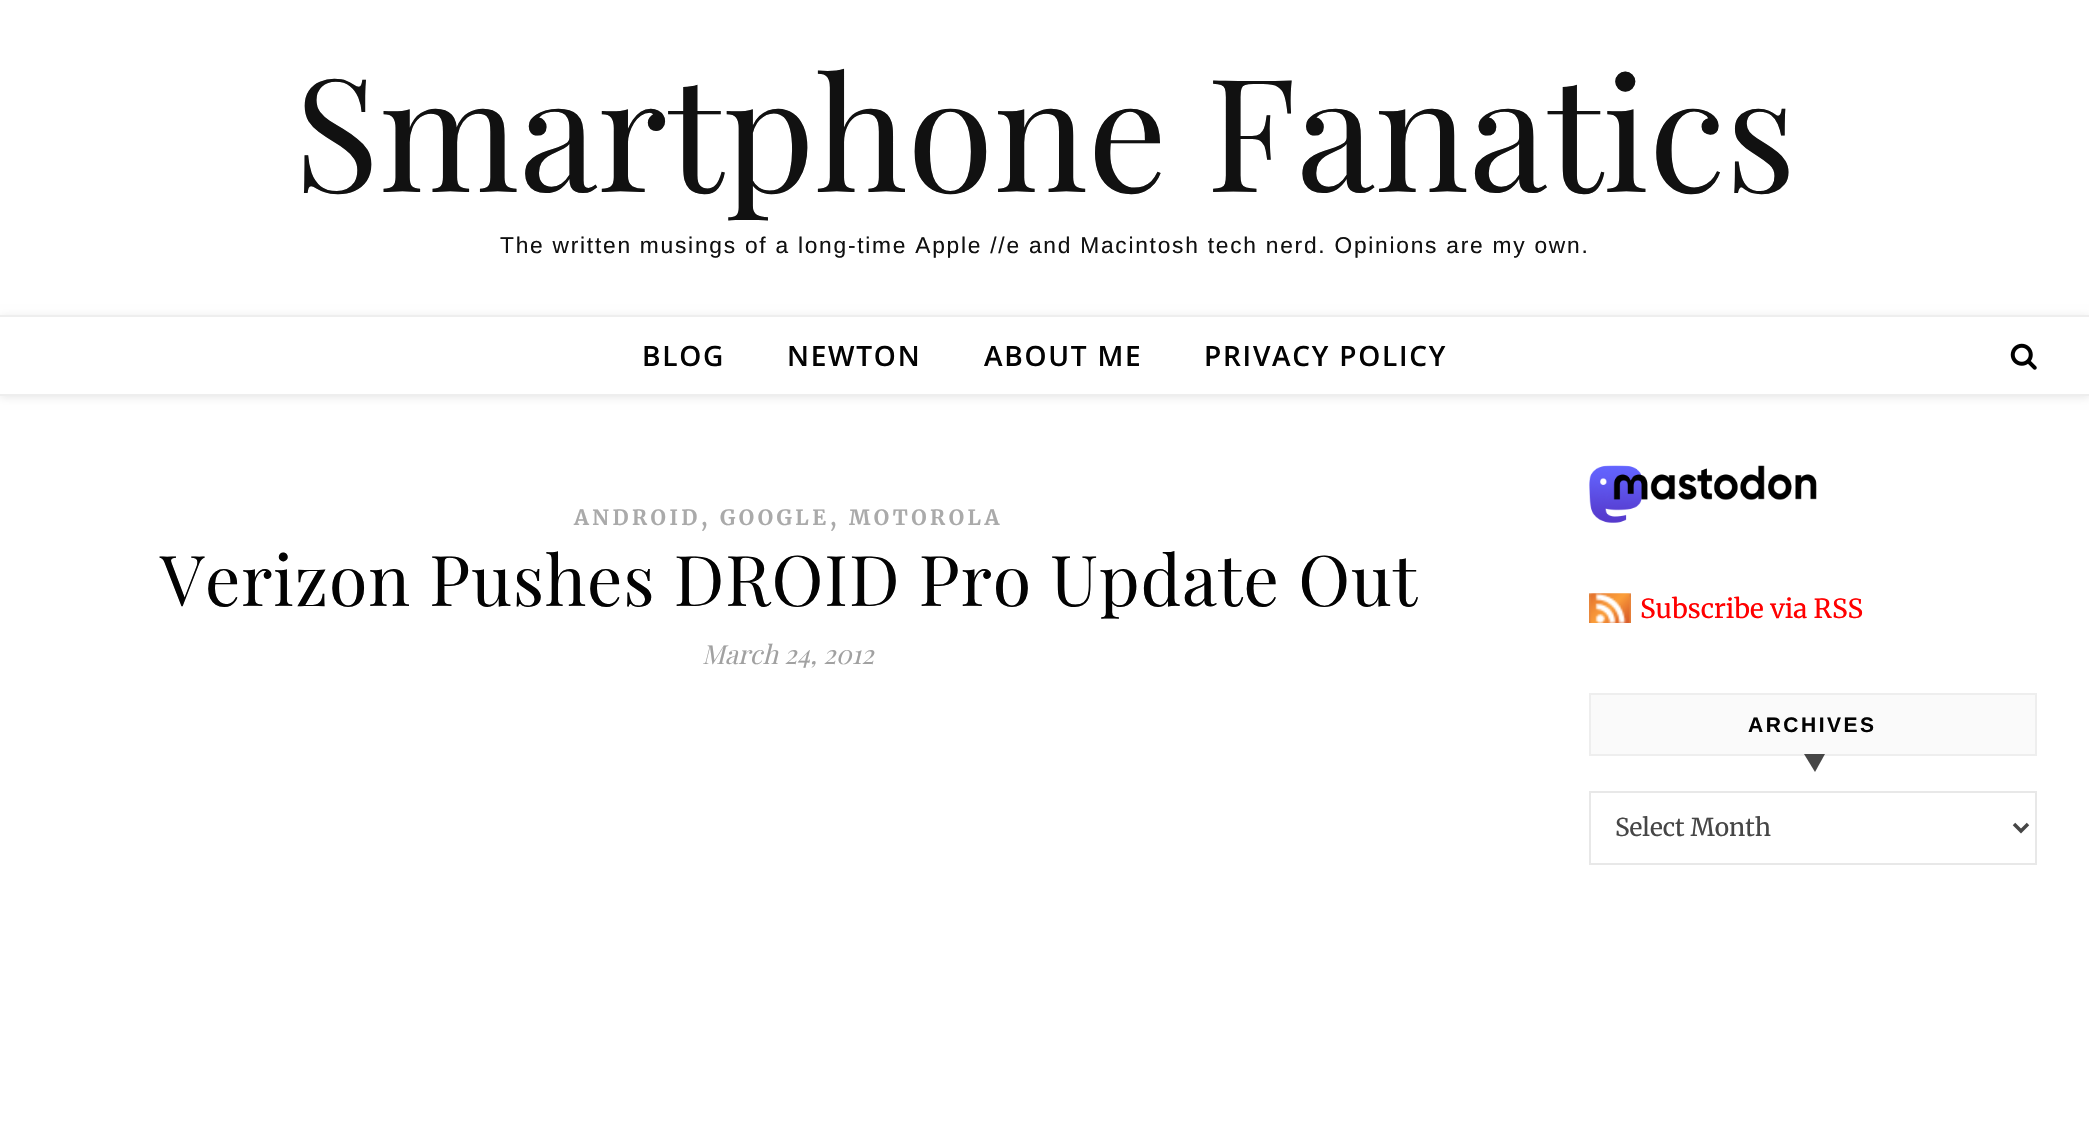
void draw(SkCanvas* canvas) {
  SkPaint paint;
  paint.setAntiAlias(true);
  auto face = [&](const char* family, int weight, float size, bool italic = false) {
    SkFontStyle style(weight, SkFontStyle::kNormal_Width,
      italic ? SkFontStyle::kItalic_Slant : SkFontStyle::kUpright_Slant);
    SkFont result(fontMgr->matchFamilyStyle(family, style), size);
    result.setSubpixel(true);
    return result;
  };
  auto writeSpaced = [&](const char* s, float x, float y, const SkFont& font, const SkPaint& ink, float letter, float word) {
    std::vector<SkGlyphID> glyphs(font.countText(s, strlen(s), SkTextEncoding::kUTF8));
    std::vector<float> xs(glyphs.size());
    font.textToGlyphs(s, strlen(s), SkTextEncoding::kUTF8, glyphs);
    font.getXPos(glyphs, xs, x);
    float extra = 0;
    for (size_t i = 0; i < glyphs.size(); i++) {
      xs[i] += extra;
      extra += letter + word * (glyphs[i] == font.unicharToGlyph(' '));
    }
    canvas->drawTextBlob(SkTextBlob::MakeFromPosHGlyphs(glyphs, xs, y, font), 0, 0, ink);
  };
  auto paste = [&](const char* path, float x, float y, float w, float h) {
    auto image = SkImages::DeferredFromEncodedData(SkData::MakeFromFileName(path));
    canvas->drawImageRect(image, SkRect::MakeXYWH(x, y, w, h), SkSamplingOptions());
  };
  auto shape = [&](const char* data, bool evenOdd = false) {
    SkPath result = *SkParsePath::FromSVGString(data);
    if (evenOdd) result.setFillType(SkPathFillType::kEvenOdd);
    return result;
  };
  canvas->clear(0xffffffff);
  paint.setColor(0x1a000000);
  paint.setMaskFilter(SkMaskFilter::MakeBlur(kNormal_SkBlurStyle, 4.5f));
  canvas->drawRect(SkRect::MakeXYWH(0, 317, 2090, 80), paint);
  paint.setMaskFilter(nullptr);
  {
    const struct { float x, y, w, h; SkColor color; } items[] = {
      {0, 317, 2089, 77, 0xffffffff},
      {0, 315, 2089, 2, 0xffeeeeee},
      {0, 394, 2089, 2, 0xffeeeeee},
    };
    for (auto [x, y, w, h, color] : items) {
      paint.setColor(color);
      canvas->drawRect(SkRect::MakeXYWH(x, y, w, h), paint);
    }
  }
  paste("img/1.png", 2010, 343, 27, 27);
  paste("img/2.png", 1589, 465, 228, 58);
  paste("img/3.png", 1589, 593, 42, 30);
  paint.setColor(0xfffafafa);
  canvas->drawRect(SkRect::MakeXYWH(1590, 694, 446, 61), paint);
  paint.setStroke(true);
  paint.setStrokeWidth(2);
  paint.setColor(0xffeeeeee);
  canvas->drawRect(SkRect::MakeXYWH(1590, 694, 446, 61), paint);
  paint.setStroke(false);
  paint.setColor(0xff464646);
  canvas->drawPath(shape("M1804 754H1825L1815 772Z"), paint);
  paint.setStroke(true);
  paint.setColor(0xffe8e8e8);
  canvas->drawRect(SkRect::MakeXYWH(1590, 792, 446, 72), paint);
  paint.setStrokeWidth(3.5f);
  paint.setColor(0xff464646);
  canvas->drawPath(shape("M2014 824L2021 831L2028 824"), paint);
  auto f0 = face("Playfair Display", 400, 157.5f);
  paint.setStroke(false);
  paint.setColor(0xff111111);
  canvas->drawString("Smartphone Fanatics", 294, 192, f0, paint);
  auto f1 = face("Liberation Sans", 400, 22.75f);
  writeSpaced("The written musings of a long-time Apple //e and Macintosh tech nerd. Opinions are my own.", 500, 253, f1, paint, 1.75f, 0);
  auto f2 = face("Open Sans", 600, 28);
  paint.setColor(0xff030303);
  {
    const struct { const char* s; float x, y; } items[] = {
      {"BLOG", 642, 366},
      {"NEWTON", 787, 366},
      {"ABOUT ME", 984, 366},
      {"PRIVACY POLICY", 1204, 366},
    };
    for (auto [s, x, y] : items) {
      writeSpaced(s, x, y, f2, paint, 1.75f, 0);
    }
  }
  auto f3 = face("Merriweather", 700, 21);
  paint.setColor(0xffaaaaaa);
  writeSpaced("ANDROID", 574, 525, f3, paint, 3.5f, 0);
  auto f4 = face("Merriweather", 400, 26.25f);
  canvas->drawString(",", 701, 525, f4, paint);
  writeSpaced("GOOGLE", 720, 525, f3, paint, 3.5f, 0);
  canvas->drawString(",", 830, 525, f4, paint);
  writeSpaced("MOTOROLA", 849, 525, f3, paint, 3.5f, 0);
  auto f5 = face("Playfair Display", 400, 70);
  paint.setColor(0xff030303);
  writeSpaced("Verizon Pushes DROID Pro Update Out", 160, 606, f5, paint, 0.9f, 0);
  auto f6 = face("Playfair Display", 400, 26.25f, true);
  paint.setColor(0xffa1a1a1);
  canvas->drawString("March 24, 2012", 702, 664, f6, paint);
  paint.setColor(0xffff0000);
  canvas->drawString("Subscribe via RSS", 1640, 618, f4, paint);
  auto f7 = face("Liberation Sans", 700, 21);
  paint.setColor(0xff030303);
  writeSpaced("ARCHIVES", 1748, 732, f7, paint, 2.5f, 0);
  auto f8 = face("Merriweather", 400, 24.5f);
  paint.setColor(0xff464646);
  canvas->drawString("Select Month", 1615, 836, f8, paint);
}
